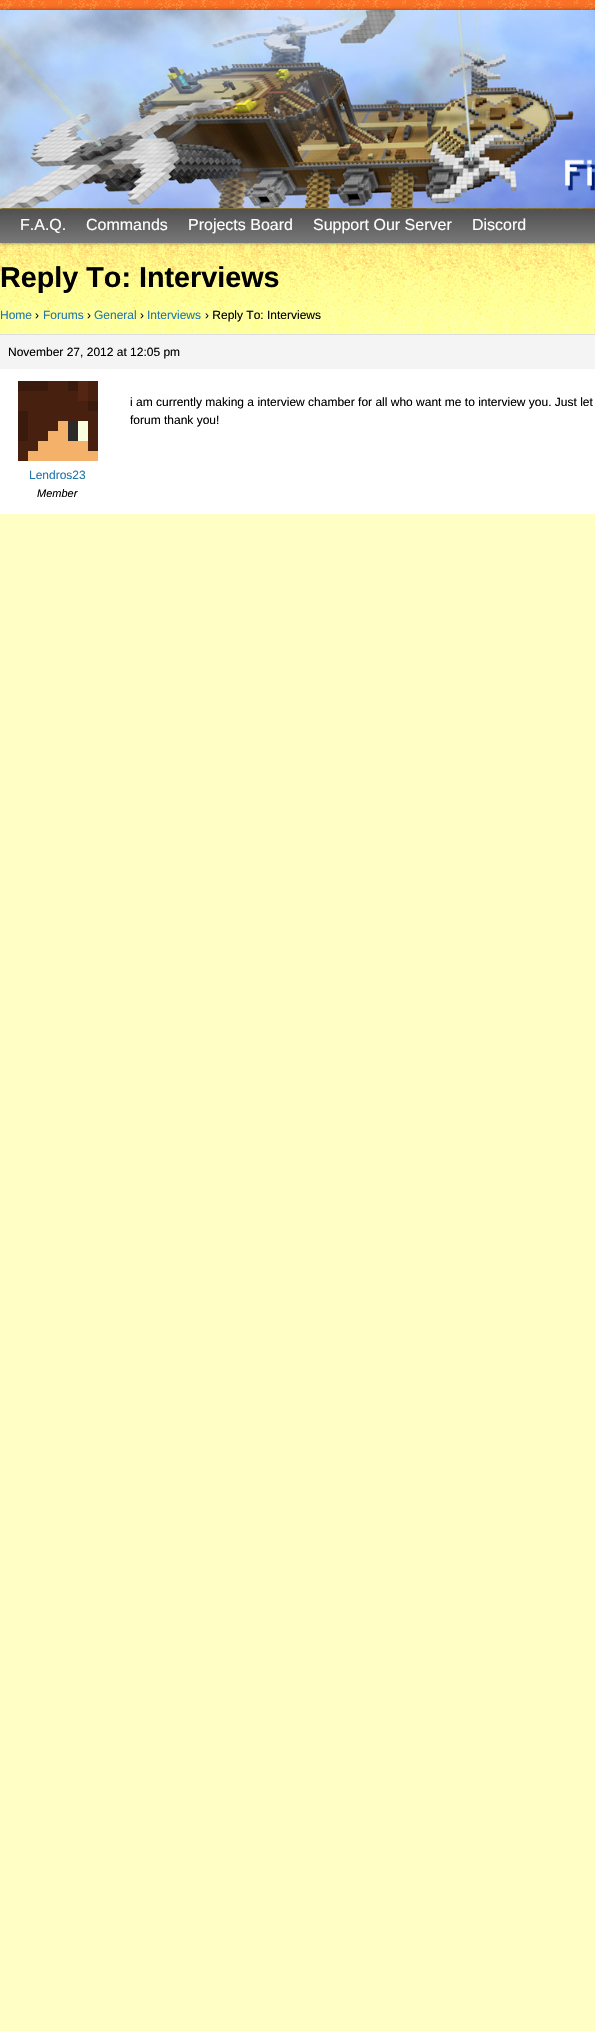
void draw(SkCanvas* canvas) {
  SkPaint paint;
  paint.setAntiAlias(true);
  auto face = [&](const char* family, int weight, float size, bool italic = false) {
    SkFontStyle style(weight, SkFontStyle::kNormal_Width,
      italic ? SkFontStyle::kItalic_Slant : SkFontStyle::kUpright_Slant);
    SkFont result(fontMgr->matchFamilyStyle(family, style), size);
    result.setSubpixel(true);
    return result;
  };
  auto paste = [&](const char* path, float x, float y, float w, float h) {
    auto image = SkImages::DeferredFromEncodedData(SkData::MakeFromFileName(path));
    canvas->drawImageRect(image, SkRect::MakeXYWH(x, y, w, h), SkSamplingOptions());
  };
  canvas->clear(0xffffffc5);
  paste("img/1.png", 0, 0, 595, 334);
  paint.setColor(0x80000000);
  paint.setMaskFilter(SkMaskFilter::MakeBlur(kNormal_SkBlurStyle, 2));
  canvas->drawRect(SkRect::MakeXYWH(0, 10, 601, 233), paint);
  paint.setMaskFilter(nullptr);
  paste("img/2.png", 0, 10, 595, 198);
  {
    const SkColor colors[] = {0xff505050, 0xff787878};
    const float stops[] = {0, 1};
    const SkPoint ends[] = {{500, 209}, {500, 243}};
    paint.setShader(SkGradientShader::MakeLinear(ends, colors, stops, 2, SkTileMode::kClamp));
    paint.setAlpha(255);
  }
  canvas->drawRect(SkRect::MakeXYWH(0, 209, 595, 34), paint);
  paint.setShader(nullptr);
  {
    const struct { float x, y, w, h; SkColor color; } items[] = {
      {0, 335, 595, 34, 0xfff4f4f4},
      {0, 334, 595, 1, 0xffdddddd},
      {0, 369, 595, 145, 0xffffffff},
    };
    for (auto [x, y, w, h, color] : items) {
      paint.setColor(color);
      canvas->drawRect(SkRect::MakeXYWH(x, y, w, h), paint);
    }
  }
  paste("img/3.png", 18, 381, 80, 80);
  auto f0 = face("Liberation Sans", 400, 16);
  {
    const struct { const char* s; float x, y; } items[] = {
      {"F.A.Q.", 20, 230},
      {"Commands", 86, 230},
      {"Projects Board", 188, 230},
      {"Support Our Server", 313, 230},
      {"Discord", 472, 230},
    };
    for (auto [s, x, y] : items) {
      canvas->drawString(s, x, y, f0, paint);
    }
  }
  auto f1 = face("Liberation Sans", 700, 28.75f);
  paint.setColor(0xff000000);
  canvas->drawString("Reply To: Interviews", 0, 287, f1, paint);
  auto f2 = face("Liberation Sans", 400, 12);
  paint.setColor(0xff2277aa);
  canvas->drawString("Home", 0, 319, f2, paint);
  paint.setColor(0xff000000);
  canvas->drawString("›", 35, 319, f2, paint);
  paint.setColor(0xff2277aa);
  canvas->drawString("Forums", 43, 319, f2, paint);
  paint.setColor(0xff000000);
  canvas->drawString("›", 87, 319, f2, paint);
  paint.setColor(0xff2277aa);
  canvas->drawString("General", 94, 319, f2, paint);
  paint.setColor(0xff000000);
  canvas->drawString("›", 140, 319, f2, paint);
  paint.setColor(0xff2277aa);
  canvas->drawString("Interviews", 147, 319, f2, paint);
  paint.setColor(0xff000000);
  {
    const struct { const char* s; float x, y; } items[] = {
      {"› Reply To: Interviews", 205, 319},
      {"November 27, 2012 at 12:05 pm", 8, 356},
      {"i am currently making a interview chamber for all who want me to interview you. Just let", 130, 406},
      {"forum thank you!", 130, 424},
    };
    for (auto [s, x, y] : items) {
      canvas->drawString(s, x, y, f2, paint);
    }
  }
  paint.setColor(0xff2277aa);
  canvas->drawString("Lendros23", 29, 479, f2, paint);
  auto f3 = face("Liberation Sans", 400, 11, true);
  paint.setColor(0xff000000);
  canvas->drawString("Member", 37, 497, f3, paint);
}
